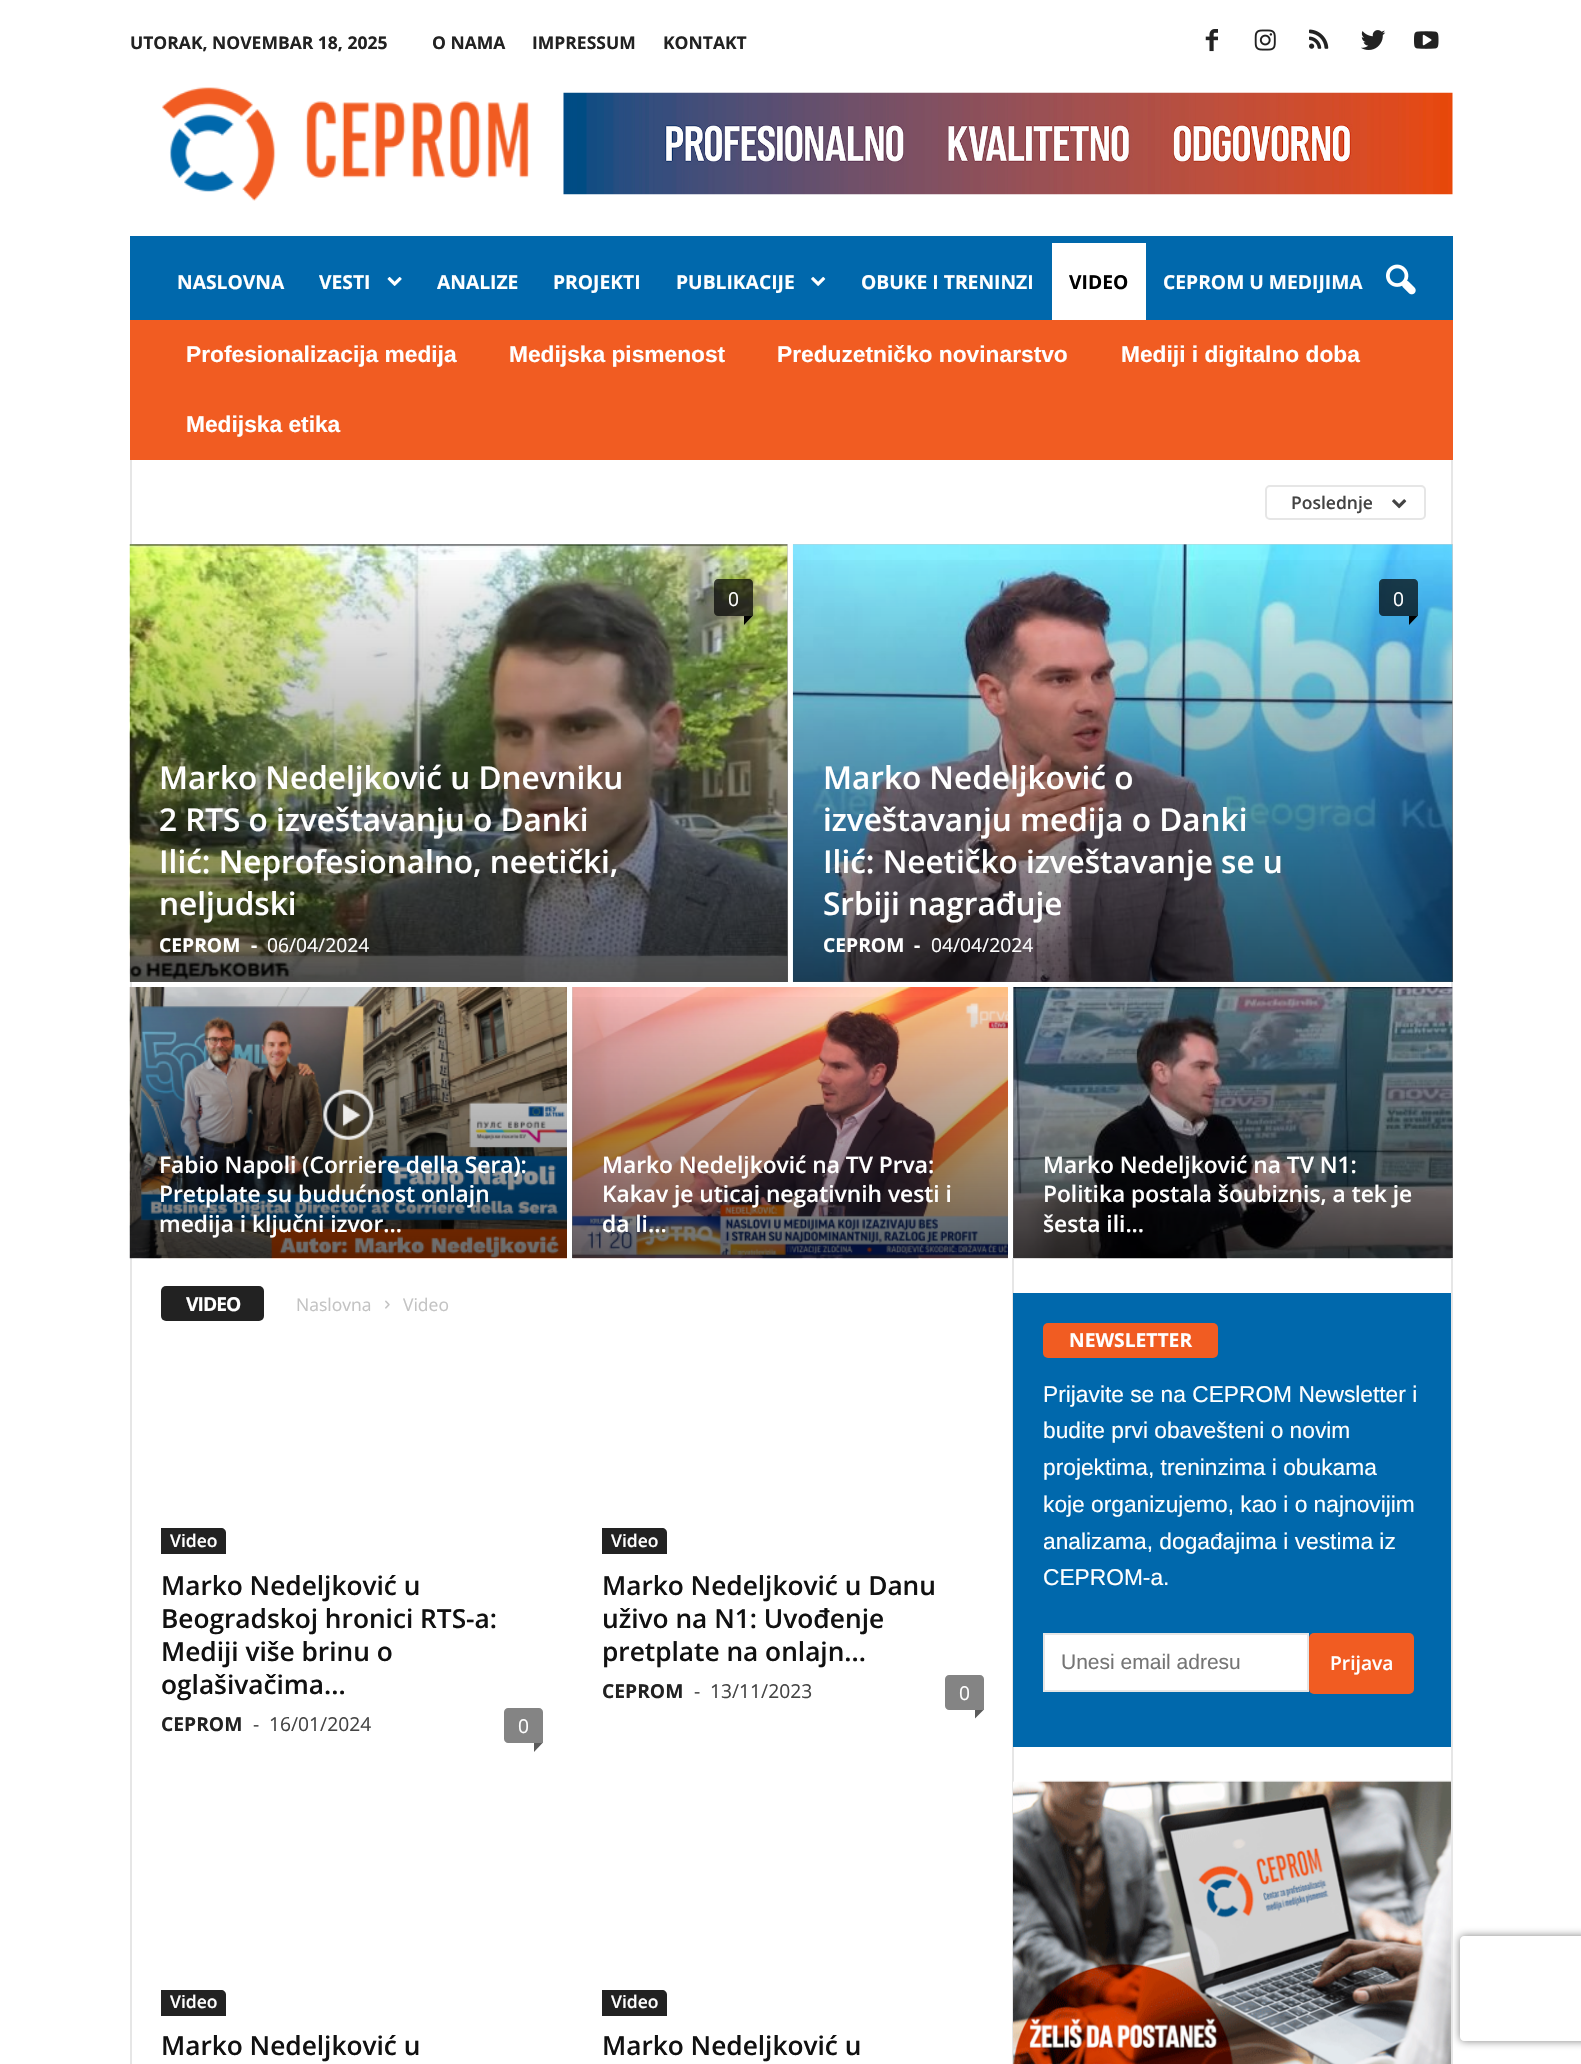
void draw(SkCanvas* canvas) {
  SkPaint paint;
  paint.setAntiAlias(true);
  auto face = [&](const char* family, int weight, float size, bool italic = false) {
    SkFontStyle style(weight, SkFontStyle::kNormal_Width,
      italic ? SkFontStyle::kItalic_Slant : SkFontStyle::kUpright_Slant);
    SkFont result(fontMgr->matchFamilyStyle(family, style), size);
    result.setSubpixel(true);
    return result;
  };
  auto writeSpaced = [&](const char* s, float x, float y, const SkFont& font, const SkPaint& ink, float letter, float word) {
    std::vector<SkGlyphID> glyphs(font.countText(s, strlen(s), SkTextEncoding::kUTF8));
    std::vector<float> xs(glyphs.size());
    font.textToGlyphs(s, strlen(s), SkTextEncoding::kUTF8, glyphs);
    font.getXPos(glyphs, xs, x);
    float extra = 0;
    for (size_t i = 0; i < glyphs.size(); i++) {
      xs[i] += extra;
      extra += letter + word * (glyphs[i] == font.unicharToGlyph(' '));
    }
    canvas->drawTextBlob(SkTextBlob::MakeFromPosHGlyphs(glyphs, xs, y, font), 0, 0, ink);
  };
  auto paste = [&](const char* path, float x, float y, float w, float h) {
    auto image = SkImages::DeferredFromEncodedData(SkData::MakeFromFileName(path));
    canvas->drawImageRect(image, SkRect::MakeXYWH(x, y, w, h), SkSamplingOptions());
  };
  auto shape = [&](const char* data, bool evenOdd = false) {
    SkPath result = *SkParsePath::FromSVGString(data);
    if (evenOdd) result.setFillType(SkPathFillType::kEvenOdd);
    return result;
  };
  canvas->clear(0xffffffff);
  paste("img/1.png", 1205, 29, 13, 23);
  paste("img/2.png", 1254, 29, 22, 22);
  paste("img/3.png", 1309, 29, 20, 20);
  paste("img/4.png", 1361, 30, 25, 20);
  paste("img/5.png", 1414, 31, 25, 18);
  paste("img/6.png", 162, 87, 367, 114);
  paste("img/7.png", 563, 92, 890, 103);
  paint.setColor(0xff0068ac);
  canvas->drawRect(SkRect::MakeXYWH(130, 236, 1323, 84), paint);
  paste("img/8.png", 387, 277, 15, 9);
  paste("img/9.png", 811, 277, 15, 9);
  paint.setColor(0xffffffff);
  canvas->drawRect(SkRect::MakeXYWH(1052, 243, 94, 77), paint);
  paste("img/10.png", 1386, 264, 30, 31);
  paint.setColor(0xfff15c22);
  canvas->drawRect(SkRect::MakeXYWH(130, 320, 1323, 140), paint);
  paint.setColor(0xffe6e6e6);
  canvas->drawRect(SkRect::MakeXYWH(130, 460, 2, 84), paint);
  paint.setStroke(true);
  paint.setStrokeWidth(2);
  canvas->drawRoundRect(SkRect::MakeXYWH(1266, 486, 159, 33), 4, 4, paint);
  paste("img/11.png", 1392, 499, 15, 10);
  paint.setStroke(false);
  canvas->drawRect(SkRect::MakeXYWH(1451, 460, 2, 84), paint);
  paint.setColor(0xffcccccc);
  canvas->drawRect(SkRect::MakeXYWH(130, 544, 658, 438), paint);
  paste("img/12.png", 129, 544, 659, 438);
  {
    const SkColor colors[] = {0x00000000, 0x99000000};
    const float stops[] = {0, 1};
    const SkPoint ends[] = {{459, 544}, {459, 982}};
    paint.setShader(SkGradientShader::MakeLinear(ends, colors, stops, 2, SkTileMode::kClamp));
    paint.setAlpha(255);
  }
  canvas->drawRect(SkRect::MakeXYWH(130, 560, 658, 422), paint);
  paint.setShader(nullptr);
  paint.setColor(0xb3000000);
  canvas->drawPath(shape("M718 579H749C751 579 753 581 753 583V616H718C716 616 714 614 714 612V583C714 581 716 579 718 579Z"), paint);
  paint.setColor(0xff000000);
  canvas->drawPath(shape("M744 616H752.5L744 625Z"), paint);
  paint.setColor(0xffcccccc);
  canvas->drawRect(SkRect::MakeXYWH(793, 544, 660, 438), paint);
  paste("img/13.png", 792, 544, 661, 438);
  {
    const SkColor colors[] = {0x00000000, 0x99000000};
    const float stops[] = {0, 1};
    const SkPoint ends[] = {{1123, 544}, {1123, 982}};
    paint.setShader(SkGradientShader::MakeLinear(ends, colors, stops, 2, SkTileMode::kClamp));
    paint.setAlpha(255);
  }
  canvas->drawRect(SkRect::MakeXYWH(793, 560, 660, 422), paint);
  paint.setShader(nullptr);
  paint.setColor(0xb3000000);
  canvas->drawPath(shape("M1383 579H1414C1416 579 1418 581 1418 583V616H1383C1381 616 1379 614 1379 612V583C1379 581 1381 579 1383 579Z"), paint);
  paint.setColor(0xff000000);
  canvas->drawPath(shape("M1409 616H1417.5L1409 625Z"), paint);
  paint.setColor(0xffe6e6e6);
  canvas->drawRect(SkRect::MakeXYWH(130, 982, 2, 1082), paint);
  paste("img/14.png", 129, 987, 438, 272);
  paste("img/15.png", 323, 1089, 51, 51);
  paint.setColor(0xffcccccc);
  canvas->drawRect(SkRect::MakeXYWH(572, 987, 1, 271), paint);
  paste("img/16.png", 572, 987, 436, 272);
  {
    const SkColor colors[] = {0x00000000, 0x99000000};
    const float stops[] = {0, 1};
    const SkPoint ends[] = {{790, 987}, {790, 1258}};
    paint.setShader(SkGradientShader::MakeLinear(ends, colors, stops, 2, SkTileMode::kClamp));
    paint.setAlpha(255);
  }
  canvas->drawRect(SkRect::MakeXYWH(572, 997, 436, 261), paint);
  paint.setShader(nullptr);
  paint.setColor(0xffcccccc);
  canvas->drawRect(SkRect::MakeXYWH(1013, 987, 440, 271), paint);
  paste("img/17.png", 1013, 987, 440, 272);
  {
    const SkColor colors[] = {0x00000000, 0x99000000};
    const float stops[] = {0, 1};
    const SkPoint ends[] = {{1233, 987}, {1233, 1258}};
    paint.setShader(SkGradientShader::MakeLinear(ends, colors, stops, 2, SkTileMode::kClamp));
    paint.setAlpha(255);
  }
  canvas->drawRect(SkRect::MakeXYWH(1013, 997, 440, 261), paint);
  paint.setShader(nullptr);
  paint.setColor(0xffe6e6e6);
  canvas->drawRect(SkRect::MakeXYWH(1451, 982, 2, 5), paint);
  paint.setColor(0xff222222);
  canvas->drawRoundRect(SkRect::MakeXYWH(161, 1286, 103, 35), 5, 5, paint);
  paste("img/18.png", 385, 1300, 5, 9);
  canvas->drawPath(shape("M161 1528H221C224 1528 226 1530 226 1533V1554H161Z"), paint);
  paint.setColor(0xff848484);
  canvas->drawPath(shape("M508 1708H539C541 1708 543 1710 543 1712V1743H508C506 1743 504 1741 504 1739V1712C504 1710 506 1708 508 1708Z"), paint);
  paint.setColor(0xff5b5b5b);
  canvas->drawPath(shape("M534 1743H542.5L534 1752Z"), paint);
  paint.setColor(0xff222222);
  canvas->drawPath(shape("M602 1528H662C665 1528 667 1530 667 1533V1554H602Z"), paint);
  paint.setColor(0xff848484);
  canvas->drawPath(shape("M949 1675H980C982 1675 984 1677 984 1679V1710H949C947 1710 945 1708 945 1706V1679C945 1677 947 1675 949 1675Z"), paint);
  paint.setColor(0xff5b5b5b);
  canvas->drawPath(shape("M975 1710H983.5L975 1718.5Z"), paint);
  paint.setColor(0xff222222);
  canvas->drawPath(shape("M161 1990H221C224 1990 226 1992 226 1995V2016H161Z"), paint);
  canvas->drawPath(shape("M602 1990H662C665 1990 667 1992 667 1995V2016H602Z"), paint);
  paint.setColor(0xffe6e6e6);
  canvas->drawRect(SkRect::MakeXYWH(1012, 1258, 2, 806), paint);
  paint.setColor(0xff0068ac);
  canvas->drawRect(SkRect::MakeXYWH(1013, 1293, 438, 454), paint);
  paint.setColor(0xfff15c22);
  canvas->drawRoundRect(SkRect::MakeXYWH(1043, 1323, 175, 35), 5, 5, paint);
  paint.setColor(0xffffffff);
  canvas->drawRect(SkRect::MakeXYWH(1044, 1634, 264, 57), paint);
  paint.setStroke(true);
  paint.setColor(0xffe6e6e6);
  canvas->drawRect(SkRect::MakeXYWH(1044, 1634, 264, 57), paint);
  paint.setStroke(false);
  paint.setColor(0xfff15c22);
  canvas->drawRoundRect(SkRect::MakeXYWH(1309, 1633, 105, 61), 5, 5, paint);
  canvas->save();
  canvas->clipPath(shape("M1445 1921H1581V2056H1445ZM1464 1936H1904C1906 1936 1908 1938 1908 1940V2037C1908 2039 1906 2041 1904 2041H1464C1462 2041 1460 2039 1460 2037V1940C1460 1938 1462 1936 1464 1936Z", true), true);
  paint.setColor(0xff808080);
  paint.setMaskFilter(SkMaskFilter::MakeBlur(kNormal_SkBlurStyle, 4.5f));
  canvas->drawRoundRect(SkRect::MakeXYWH(1460, 1936, 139, 105), 4, 4, paint);
  paint.setMaskFilter(nullptr);
  canvas->restore();
  paste("img/19.png", 1013, 1780, 438, 284);
  paint.setColor(0xffe6e6e6);
  canvas->drawRect(SkRect::MakeXYWH(1451, 1258, 2, 806), paint);
  auto f0 = face("Open Sans", 700, 17.5f);
  paint.setColor(0xff222222);
  {
    const struct { const char* s; float x, y; } items[] = {
      {"UTORAK, NOVEMBAR 18, 2025", 130, 49},
      {"O NAMA", 432, 49},
      {"IMPRESSUM", 532, 49},
      {"KONTAKT", 663, 49},
    };
    for (auto [s, x, y] : items) {
      canvas->drawString(s, x, y, f0, paint);
    }
  }
  auto f1 = face("Open Sans", 700, 19.25f);
  paint.setColor(0xffffffff);
  {
    const struct { const char* s; float x, y; } items[] = {
      {"NASLOVNA", 177, 289},
      {"VESTI", 319, 289},
      {"ANALIZE", 437, 289},
      {"PROJEKTI", 553, 289},
      {"PUBLIKACIJE", 676, 289},
      {"OBUKE I TRENINZI", 861, 289},
    };
    for (auto [s, x, y] : items) {
      canvas->drawString(s, x, y, f1, paint);
    }
  }
  paint.setColor(0xff000000);
  canvas->drawString("VIDEO", 1069, 289, f1, paint);
  paint.setColor(0xffffffff);
  canvas->drawString("CEPROM U MEDIJIMA", 1163, 289, f1, paint);
  auto f2 = face("Liberation Sans", 700, 22.75f);
  {
    const struct { const char* s; float x, y; } items[] = {
      {"Profesionalizacija medija", 186, 362},
      {"Medijska pismenost", 509, 362},
      {"Preduzetničko novinarstvo", 777, 362},
      {"Mediji i digitalno doba", 1121, 362},
      {"Medijska etika", 186, 432},
    };
    for (auto [s, x, y] : items) {
      canvas->drawString(s, x, y, f2, paint);
    }
  }
  auto f3 = face("Open Sans", 600, 17.5f);
  paint.setColor(0xff444444);
  canvas->drawString("Poslednje", 1291, 509, f3, paint);
  auto f4 = face("Open Sans", 400, 19.25f);
  paint.setColor(0xffffffff);
  canvas->drawString("0", 728, 606, f4, paint);
  auto f5 = face("Open Sans", 600, 31.5f);
  {
    const struct { const char* s; float x, y; } items[] = {
      {"Marko Nedeljković u Dnevniku", 159, 789},
      {"2 RTS o izveštavanju o Danki", 159, 831},
      {"Ilić: Neprofesionalno, neetički,", 159, 873},
      {"neljudski", 159, 915},
    };
    for (auto [s, x, y] : items) {
      canvas->drawString(s, x, y, f5, paint);
    }
  }
  canvas->drawString("CEPROM", 159, 952, f1, paint);
  canvas->drawString("-", 251, 952, f1, paint);
  canvas->drawString("06/04/2024", 267, 952, f4, paint);
  canvas->drawString("0", 1393, 606, f4, paint);
  {
    const struct { const char* s; float x, y; } items[] = {
      {"Marko Nedeljković o", 823, 789},
      {"izveštavanju medija o Danki", 823, 831},
      {"Ilić: Neetičko izveštavanje se u", 823, 873},
      {"Srbiji nagrađuje", 823, 915},
    };
    for (auto [s, x, y] : items) {
      canvas->drawString(s, x, y, f5, paint);
    }
  }
  canvas->drawString("CEPROM", 823, 952, f1, paint);
  canvas->drawString("-", 914, 952, f1, paint);
  canvas->drawString("04/04/2024", 931, 952, f4, paint);
  auto f6 = face("Open Sans", 600, 22.75f);
  {
    const struct { const char* s; float x, y; } items[] = {
      {"Fabio Napoli (Corriere della Sera):", 159, 1173},
      {"Pretplate su budućnost onlajn", 159, 1202},
      {"medija i ključni izvor...", 159, 1232},
      {"Marko Nedeljković na TV Prva:", 602, 1173},
      {"Kakav je uticaj negativnih vesti i", 602, 1202},
      {"da li...", 602, 1232},
      {"Marko Nedeljković na TV N1:", 1043, 1173},
      {"Politika postala šoubiznis, a tek je", 1043, 1202},
      {"šesta ili...", 1043, 1232},
    };
    for (auto [s, x, y] : items) {
      canvas->drawString(s, x, y, f6, paint);
    }
  }
  writeSpaced("VIDEO", 186, 1311, f1, paint, -1, 0);
  auto f7 = face("Open Sans", 400, 17.5f);
  paint.setColor(0xffc3c3c3);
  canvas->drawString("Naslovna", 296, 1311, f7, paint);
  canvas->drawString("Video", 403, 1311, f7, paint);
  paint.setColor(0xffffffff);
  canvas->drawString("Video", 170, 1547, f3, paint);
  auto f8 = face("Open Sans", 600, 26.25f);
  paint.setColor(0xff111111);
  {
    const struct { const char* s; float x, y; } items[] = {
      {"Marko Nedeljković u", 161, 1595},
      {"Beogradskoj hronici RTS-a:", 161, 1628},
      {"Mediji više brinu o", 161, 1661},
      {"oglašivačima...", 161, 1694},
    };
    for (auto [s, x, y] : items) {
      canvas->drawString(s, x, y, f8, paint);
    }
  }
  paint.setColor(0xff222222);
  canvas->drawString("CEPROM", 161, 1731, f1, paint);
  paint.setColor(0xff444444);
  canvas->drawString("-", 253, 1731, f4, paint);
  canvas->drawString("16/01/2024", 269, 1731, f4, paint);
  paint.setColor(0xffffffff);
  canvas->drawString("0", 518, 1733, f4, paint);
  canvas->drawString("Video", 611, 1547, f3, paint);
  paint.setColor(0xff111111);
  {
    const struct { const char* s; float x, y; } items[] = {
      {"Marko Nedeljković u Danu", 602, 1595},
      {"uživo na N1: Uvođenje", 602, 1628},
      {"pretplate na onlajn...", 602, 1661},
    };
    for (auto [s, x, y] : items) {
      canvas->drawString(s, x, y, f8, paint);
    }
  }
  paint.setColor(0xff222222);
  canvas->drawString("CEPROM", 602, 1698, f1, paint);
  paint.setColor(0xff444444);
  canvas->drawString("-", 694, 1698, f4, paint);
  canvas->drawString("13/11/2023", 710, 1698, f4, paint);
  paint.setColor(0xffffffff);
  canvas->drawString("0", 959, 1700, f4, paint);
  canvas->drawString("Video", 170, 2008, f3, paint);
  paint.setColor(0xff111111);
  canvas->drawString("Marko Nedeljković u", 161, 2055, f8, paint);
  paint.setColor(0xffffffff);
  canvas->drawString("Video", 611, 2008, f3, paint);
  paint.setColor(0xff111111);
  canvas->drawString("Marko Nedeljković u", 602, 2055, f8, paint);
  paint.setColor(0xffffffff);
  canvas->drawString("NEWSLETTER", 1069, 1347, f1, paint);
  auto f9 = face("Liberation Sans", 400, 22.75f);
  {
    const struct { const char* s; float x, y; } items[] = {
      {"Prijavite se na CEPROM Newsletter i", 1043, 1402},
      {"budite prvi obavešteni o novim", 1043, 1438},
      {"projektima, treninzima i obukama", 1043, 1475},
      {"koje organizujemo, kao i o najnovijim", 1043, 1512},
      {"analizama, događajima i vestima iz", 1043, 1549},
      {"CEPROM-a.", 1043, 1585},
    };
    for (auto [s, x, y] : items) {
      canvas->drawString(s, x, y, f9, paint);
    }
  }
  auto f10 = face("Liberation Sans", 400, 21);
  paint.setColor(0xff757575);
  canvas->drawString("Unesi email adresu", 1061, 1669, f10, paint);
  auto f11 = face("Open Sans", 600, 19.25f);
  paint.setColor(0xffffffff);
  canvas->drawString("Prijava", 1330, 1670, f11, paint);
}
